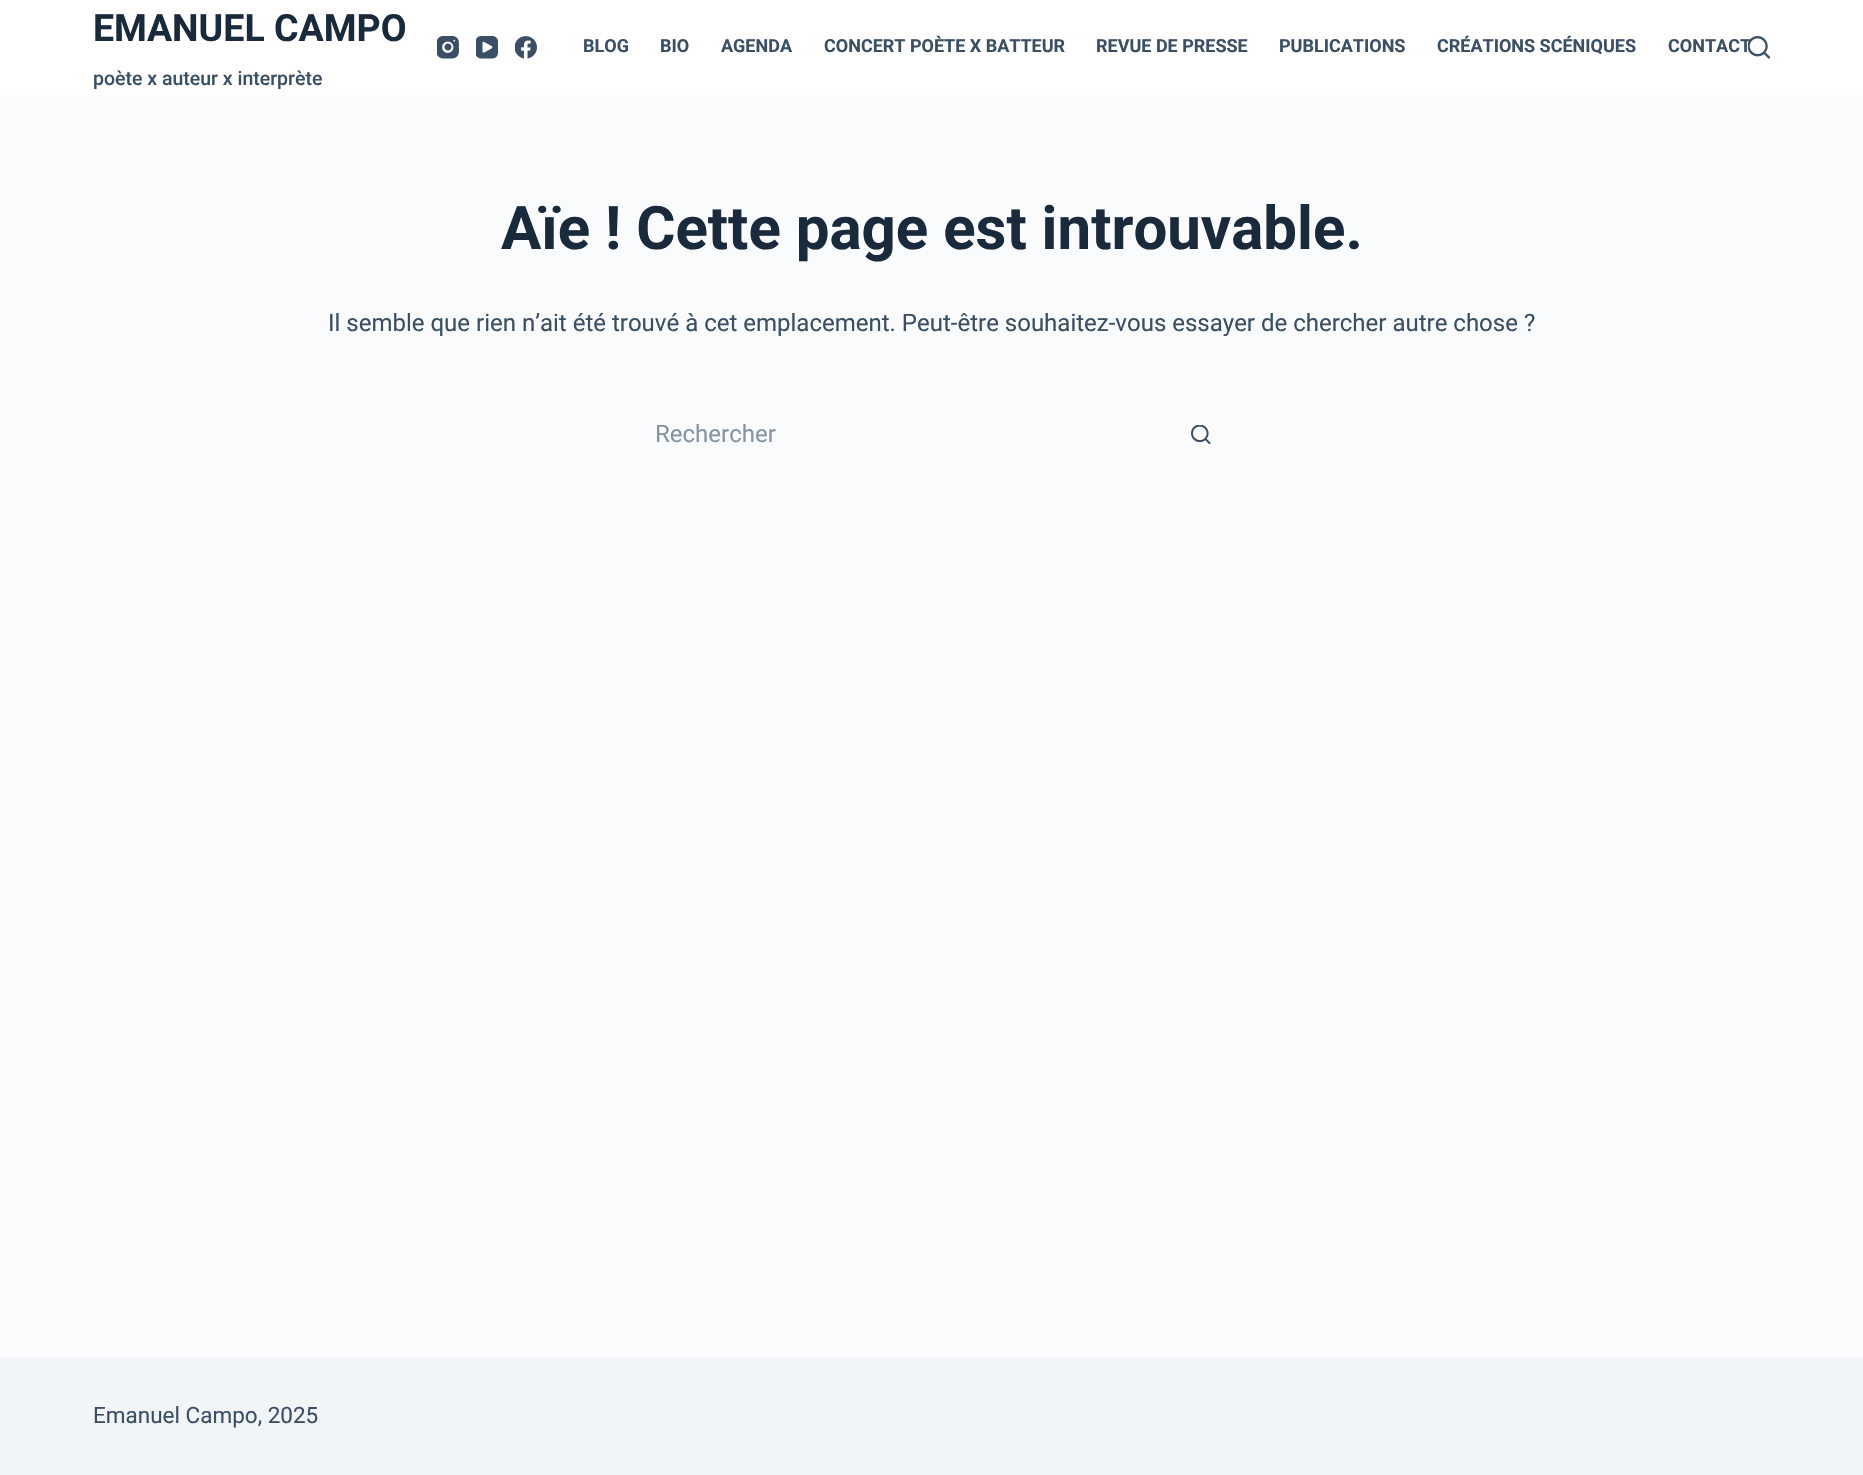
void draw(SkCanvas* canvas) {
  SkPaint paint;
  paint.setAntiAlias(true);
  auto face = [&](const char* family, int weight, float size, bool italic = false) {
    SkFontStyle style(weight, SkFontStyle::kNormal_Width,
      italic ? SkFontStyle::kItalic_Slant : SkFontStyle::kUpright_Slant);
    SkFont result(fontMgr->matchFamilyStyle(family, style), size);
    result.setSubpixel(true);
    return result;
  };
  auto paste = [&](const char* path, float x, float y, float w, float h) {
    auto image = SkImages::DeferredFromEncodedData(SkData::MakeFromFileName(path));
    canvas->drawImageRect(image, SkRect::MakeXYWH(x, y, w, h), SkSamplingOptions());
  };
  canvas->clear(0xfffafbfc);
  paint.setColor(0xffffffff);
  canvas->drawRect(SkRect::MakeXYWH(0, 0, 1863, 95), paint);
  paste("img/1.png", 437, 36, 22, 23);
  paste("img/2.png", 476, 36, 22, 23);
  paste("img/3.png", 515, 36, 22, 23);
  paste("img/5.png", 1191, 425, 20, 19);
  paint.setColor(0xfff2f5f7);
  canvas->drawRect(SkRect::MakeXYWH(0, 1358, 1863, 117), paint);
  auto f0 = face("Roboto", 700, 37.5f);
  paint.setColor(0xff192a3d);
  canvas->drawString("EMANUEL CAMPO", 93, 41, f0, paint);
  auto f1 = face("Roboto", 500, 19.5f);
  paint.setColor(0xff3a4f66);
  canvas->drawString("poète x auteur x interprète", 93, 85, f1, paint);
  auto f2 = face("Roboto", 700, 18);
  {
    const struct { const char* s; float x, y; } items[] = {
      {"BLOG", 583, 52},
      {"BIO", 660, 52},
      {"AGENDA", 721, 52},
      {"CONCERT POÈTE X BATTEUR", 824, 52},
      {"REVUE DE PRESSE", 1096, 52},
      {"PUBLICATIONS", 1279, 52},
      {"CRÉATIONS SCÉNIQUES", 1437, 52},
      {"CONTACT", 1668, 52},
    };
    for (auto [s, x, y] : items) {
      canvas->drawString(s, x, y, f2, paint);
    }
  }
  paste("img/4.png", 1748, 36, 22, 23);
  auto f3 = face("Roboto", 700, 60);
  paint.setColor(0xff192a3d);
  canvas->drawString("Aïe ! Cette page est introuvable.", 501, 249, f3, paint);
  auto f4 = face("Roboto", 400, 24);
  paint.setColor(0xff3a4f66);
  canvas->drawString("Il semble que rien n’ait été trouvé à cet emplacement. Peut-être souhaitez-vous essayer de chercher autre chose ?", 328, 331, f4, paint);
  paint.setColor(0xff8794a2);
  canvas->drawString("Rechercher", 655, 442, f4, paint);
  auto f5 = face("Roboto", 400, 22.5f);
  paint.setColor(0xff3a4f66);
  canvas->drawString("Emanuel Campo, 2025", 93, 1423, f5, paint);
}
